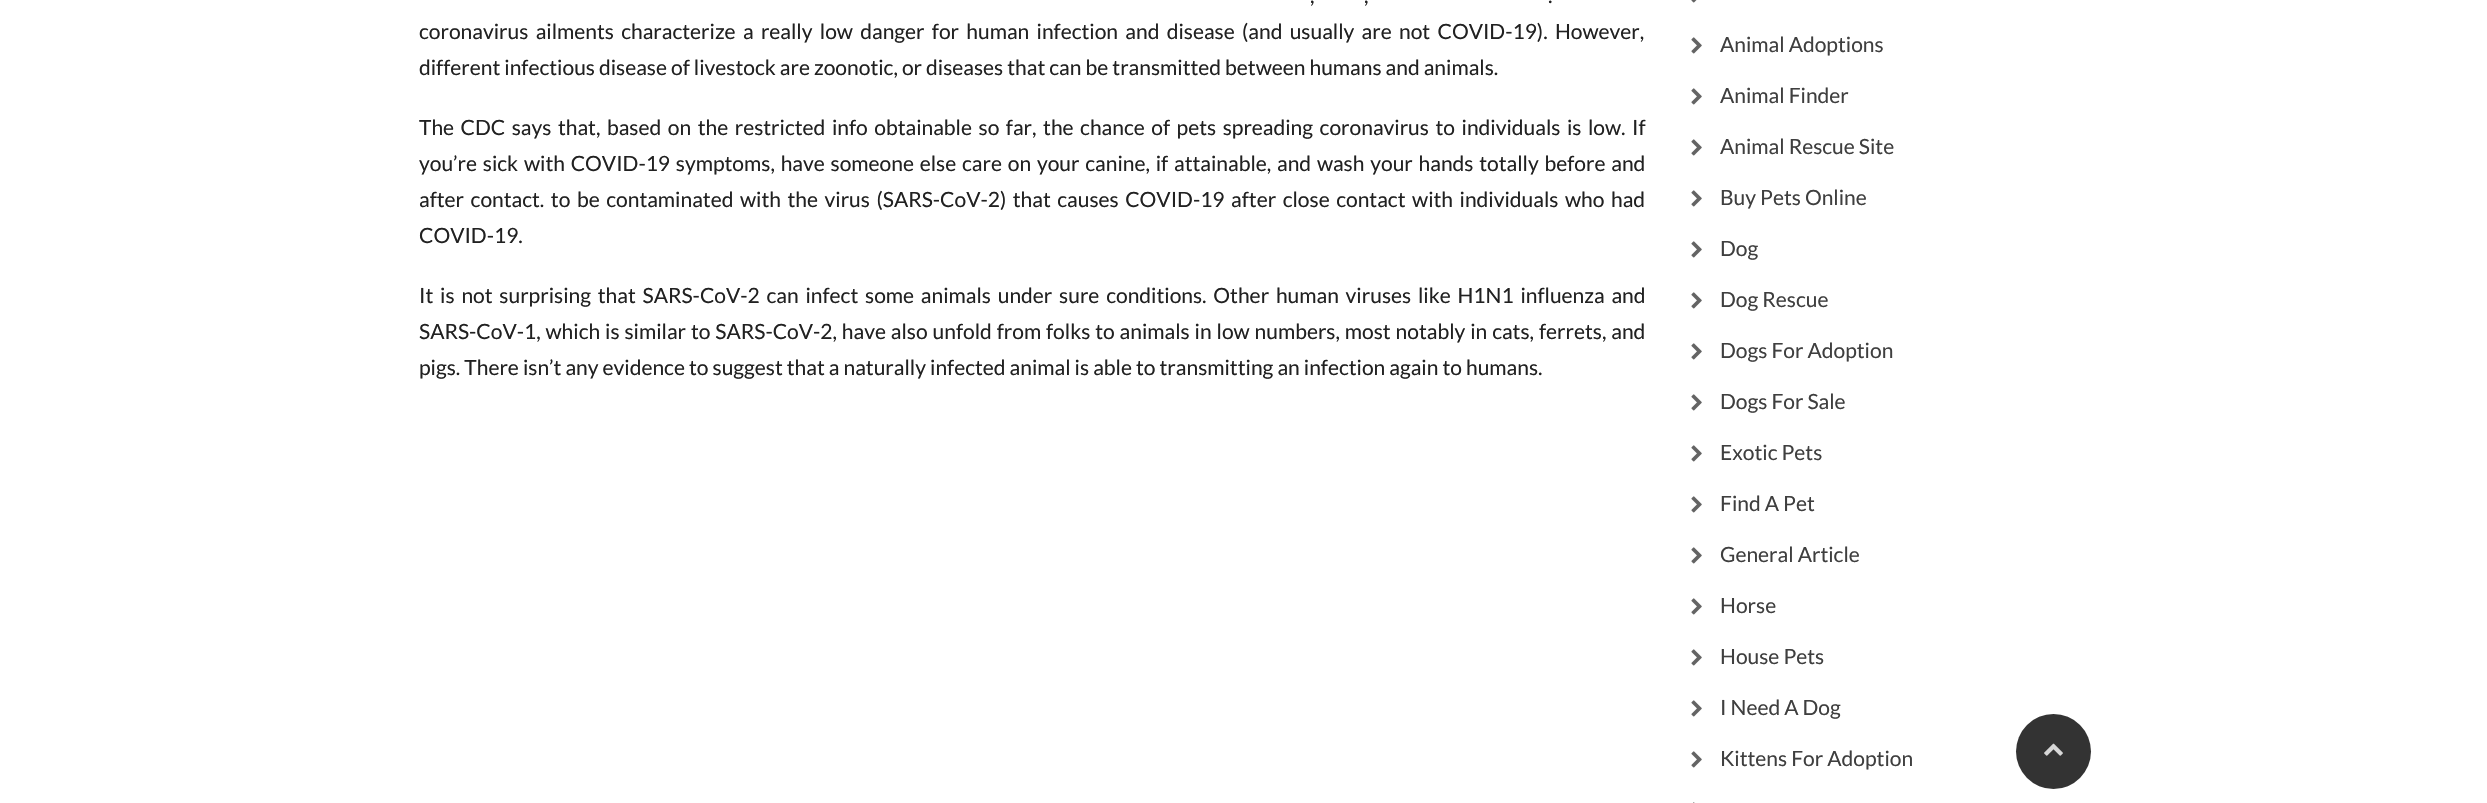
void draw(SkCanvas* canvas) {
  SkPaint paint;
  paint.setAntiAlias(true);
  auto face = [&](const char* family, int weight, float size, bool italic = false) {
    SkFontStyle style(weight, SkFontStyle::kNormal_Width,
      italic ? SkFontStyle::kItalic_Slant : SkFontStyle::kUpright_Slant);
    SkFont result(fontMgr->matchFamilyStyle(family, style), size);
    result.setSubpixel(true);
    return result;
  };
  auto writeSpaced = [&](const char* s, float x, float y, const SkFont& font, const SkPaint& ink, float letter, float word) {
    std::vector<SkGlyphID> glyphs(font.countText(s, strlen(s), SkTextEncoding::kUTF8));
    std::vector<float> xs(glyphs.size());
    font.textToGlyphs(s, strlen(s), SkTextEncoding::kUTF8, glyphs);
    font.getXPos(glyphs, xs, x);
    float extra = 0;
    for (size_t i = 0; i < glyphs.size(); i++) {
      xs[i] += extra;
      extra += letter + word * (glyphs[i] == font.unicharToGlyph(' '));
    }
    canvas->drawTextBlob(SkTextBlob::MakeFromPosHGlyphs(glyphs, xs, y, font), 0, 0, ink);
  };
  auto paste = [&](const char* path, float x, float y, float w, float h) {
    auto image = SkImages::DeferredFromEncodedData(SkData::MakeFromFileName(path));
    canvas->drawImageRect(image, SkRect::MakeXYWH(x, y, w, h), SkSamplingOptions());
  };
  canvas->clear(0xffffffff);
  paste("img/1.png", 1691, 0, 6, 3);
  paste("img/2.png", 1691, 37, 11, 17);
  paste("img/2.png", 1691, 88, 11, 17);
  paste("img/2.png", 1691, 139, 11, 17);
  paste("img/2.png", 1691, 190, 11, 17);
  paste("img/2.png", 1691, 241, 11, 17);
  paste("img/2.png", 1691, 292, 11, 17);
  paste("img/2.png", 1691, 343, 11, 17);
  paste("img/2.png", 1691, 394, 11, 17);
  paste("img/2.png", 1691, 445, 11, 17);
  paste("img/2.png", 1691, 496, 11, 17);
  paste("img/2.png", 1691, 547, 11, 17);
  paste("img/2.png", 1691, 598, 11, 17);
  paste("img/2.png", 1691, 649, 11, 17);
  paste("img/2.png", 1691, 700, 11, 17);
  paste("img/2.png", 1691, 751, 11, 17);
  paste("img/3.png", 1693, 802, 2, 1);
  paint.setColor(0xff333333);
  canvas->drawCircle(2053.5f, 751.5f, 37.5f, paint);
  paste("img/4.png", 2044, 743, 19, 13);
  auto f0 = face("Lato", 400, 21);
  paint.setColor(0xff212121);
  {
    const struct { const char* s; float x, y; } items[] = {
      {",", 1310, 3},
      {",", 1364, 3},
      {".", 1548, 3},
    };
    for (auto [s, x, y] : items) {
      writeSpaced(s, x, y, f0, paint, 0, 1);
    }
  }
  writeSpaced("coronavirus ailments characterize a really low danger for human infection and disease (and usually are not COVID-19). However,", 419, 39, f0, paint, 0, 3.25f);
  canvas->drawString("different infectious disease of livestock are zoonotic, or diseases that can be transmitted between humans and animals.", 419, 75, f0, paint);
  writeSpaced("The CDC says that, based on the restricted info obtainable so far, the chance of pets spreading coronavirus to individuals is low. If", 419, 135, f0, paint, 0, 2.5f);
  writeSpaced("you’re sick with COVID-19 symptoms, have someone else care on your canine, if attainable, and wash your hands totally before and", 419, 171, f0, paint, 0, 1.75f);
  writeSpaced("after contact. to be contaminated with the virus (SARS-CoV-2) that causes COVID-19 after close contact with individuals who had", 419, 207, f0, paint, 0, 2.5f);
  canvas->drawString("COVID-19.", 419, 243, f0, paint);
  writeSpaced("It is not surprising that SARS-CoV-2 can infect some animals under sure conditions. Other human viruses like H1N1 influenza and", 419, 303, f0, paint, 0, 2.75f);
  writeSpaced("SARS-CoV-1, which is similar to SARS-CoV-2, have also unfold from folks to animals in low numbers, most notably in cats, ferrets, and", 419, 339, f0, paint, 0, 0.85f);
  canvas->drawString("pigs. There isn’t any evidence to suggest that a naturally infected animal is able to transmitting an infection again to humans.", 419, 375, f0, paint);
  paint.setColor(0xff3f3f3f);
  {
    const struct { const char* s; float x, y; } items[] = {
      {"Animal Adoptions", 1720, 52},
      {"Animal Finder", 1720, 103},
      {"Animal Rescue Site", 1720, 154},
      {"Buy Pets Online", 1720, 205},
      {"Dog", 1720, 256},
      {"Dog Rescue", 1720, 307},
      {"Dogs For Adoption", 1720, 358},
      {"Dogs For Sale", 1720, 409},
      {"Exotic Pets", 1720, 460},
      {"Find A Pet", 1720, 511},
      {"General Article", 1720, 562},
      {"Horse", 1720, 613},
      {"House Pets", 1720, 664},
      {"I Need A Dog", 1720, 715},
      {"Kittens For Adoption", 1720, 766},
    };
    for (auto [s, x, y] : items) {
      canvas->drawString(s, x, y, f0, paint);
    }
  }
}
